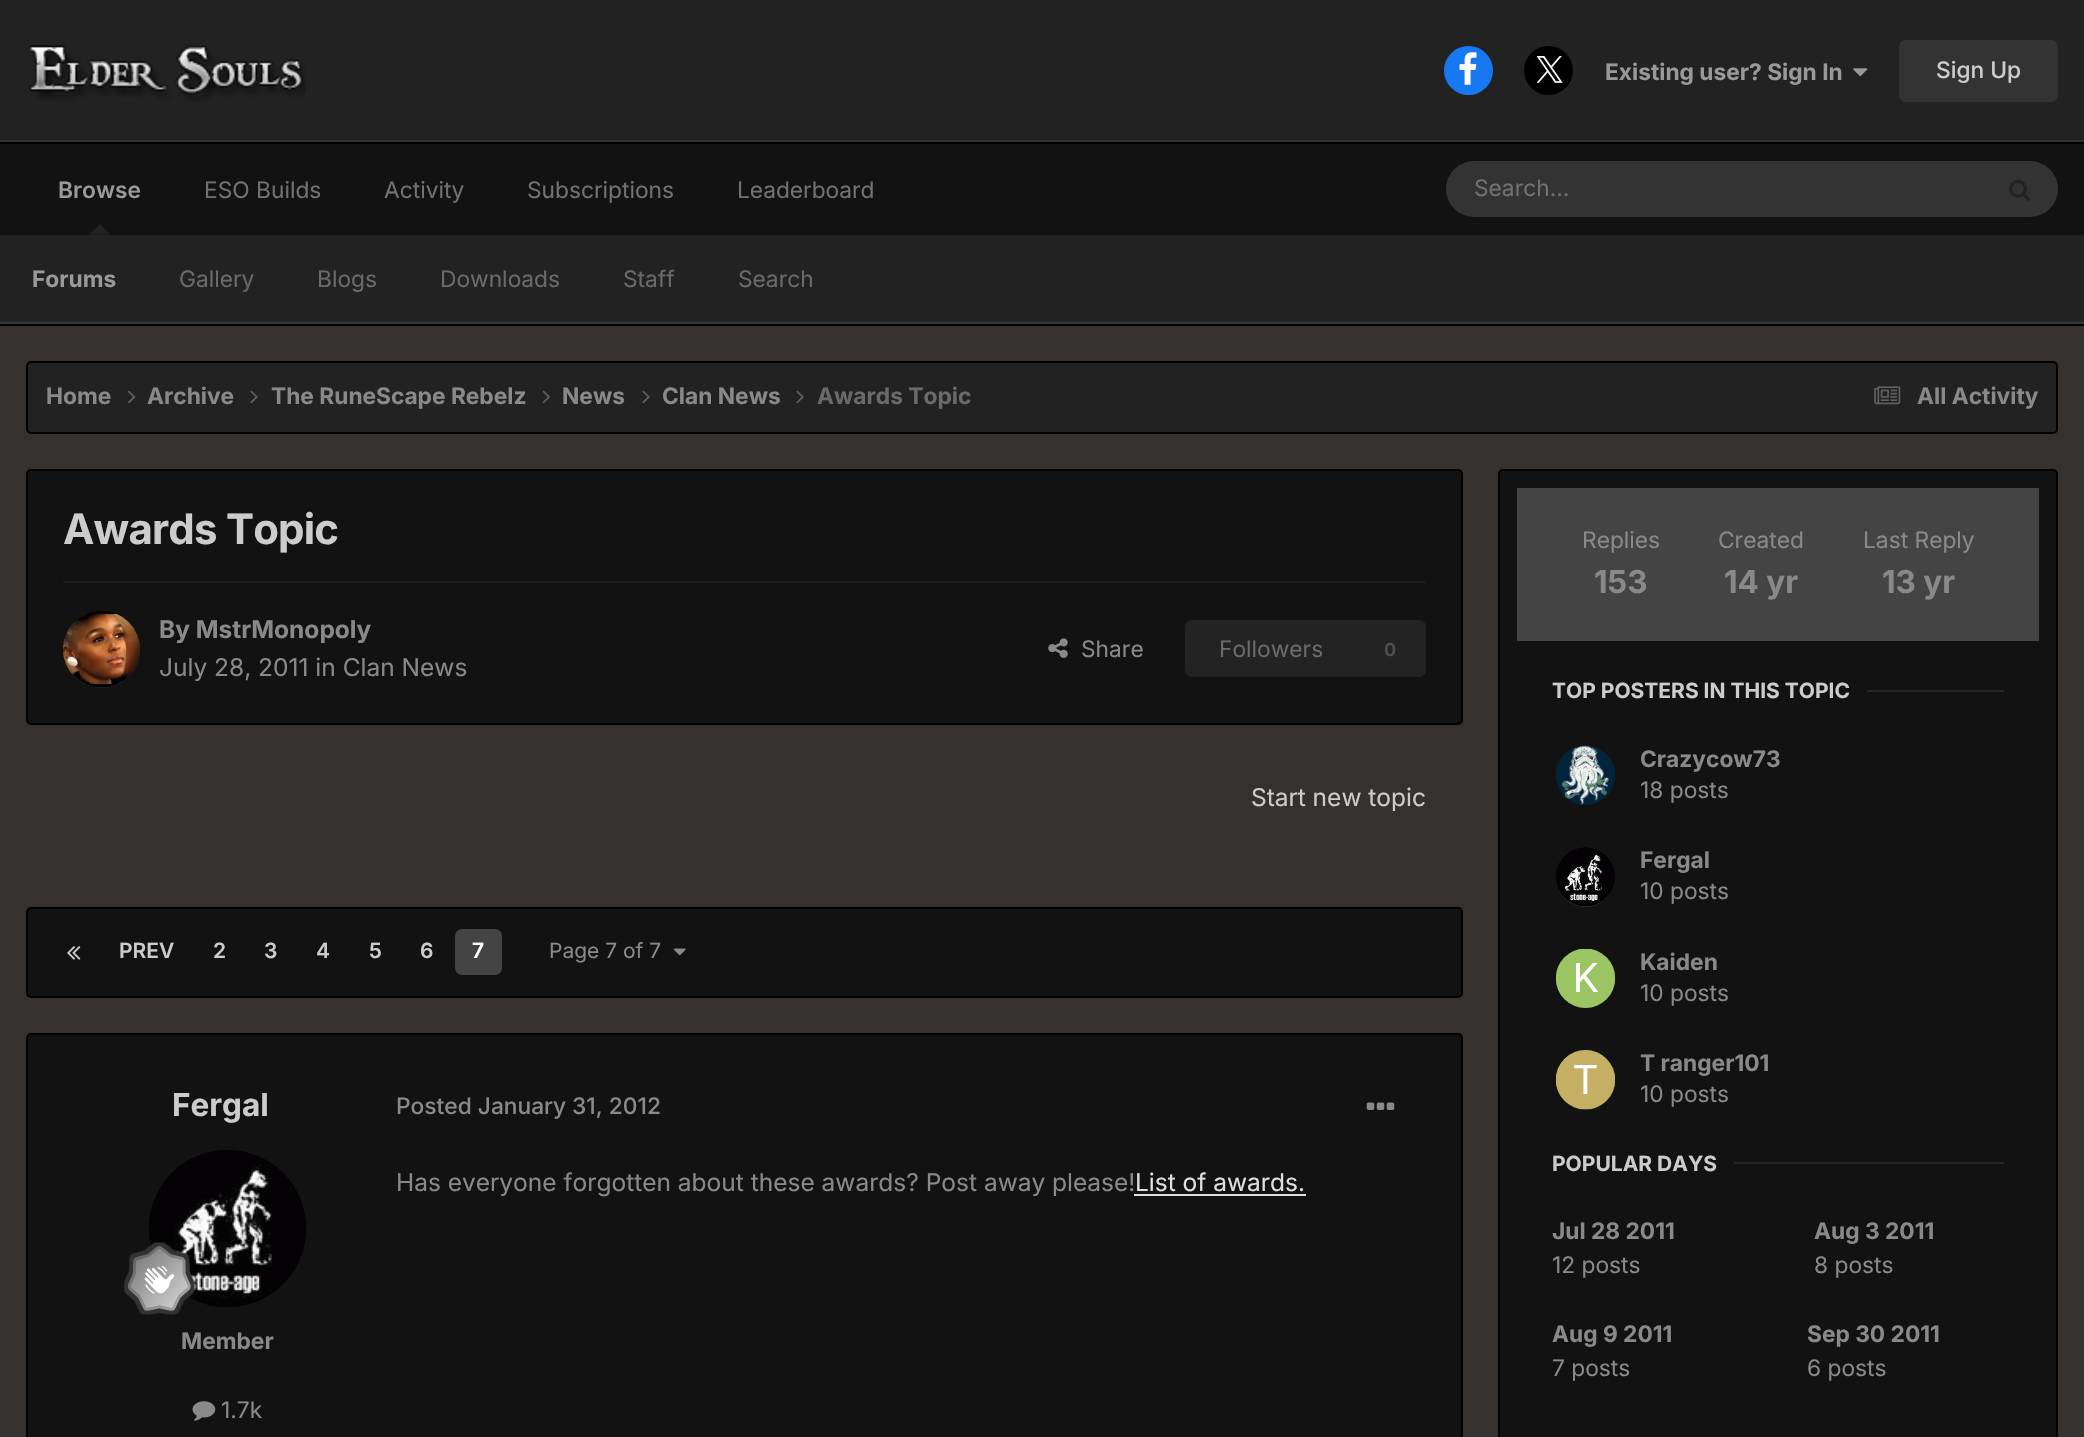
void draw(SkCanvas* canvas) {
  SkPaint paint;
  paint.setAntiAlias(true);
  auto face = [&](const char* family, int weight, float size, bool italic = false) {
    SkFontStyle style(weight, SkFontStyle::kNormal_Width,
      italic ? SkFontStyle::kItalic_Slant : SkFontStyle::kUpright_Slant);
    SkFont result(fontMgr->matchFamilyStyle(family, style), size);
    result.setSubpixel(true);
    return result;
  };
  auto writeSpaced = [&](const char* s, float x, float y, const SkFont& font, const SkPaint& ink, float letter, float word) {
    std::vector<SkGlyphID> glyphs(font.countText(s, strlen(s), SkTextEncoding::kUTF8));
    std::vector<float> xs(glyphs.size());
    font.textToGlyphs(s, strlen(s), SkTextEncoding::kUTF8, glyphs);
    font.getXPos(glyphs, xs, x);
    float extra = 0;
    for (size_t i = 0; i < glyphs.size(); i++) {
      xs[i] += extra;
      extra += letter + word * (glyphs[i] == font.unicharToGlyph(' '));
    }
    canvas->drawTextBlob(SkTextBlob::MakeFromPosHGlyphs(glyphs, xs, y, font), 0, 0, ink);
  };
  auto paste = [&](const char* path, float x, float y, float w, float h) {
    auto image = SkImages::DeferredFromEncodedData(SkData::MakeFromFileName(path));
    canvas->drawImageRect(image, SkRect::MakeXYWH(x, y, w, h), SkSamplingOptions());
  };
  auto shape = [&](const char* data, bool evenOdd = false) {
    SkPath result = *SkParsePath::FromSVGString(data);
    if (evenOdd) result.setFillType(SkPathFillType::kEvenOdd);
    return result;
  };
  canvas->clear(0xff34312f);
  {
    const struct { float x, y, w, h; SkColor color; } items[] = {
      {0, 324, 2084, 2, 0xff000000},
      {0, 0, 2084, 140, 0xff222222},
      {0, 140, 2084, 2, 0xff303030},
    };
    for (auto [x, y, w, h, color] : items) {
      paint.setColor(color);
      canvas->drawRect(SkRect::MakeXYWH(x, y, w, h), paint);
    }
  }
  paste("img/1.png", 28, 45, 278, 57);
  paint.setColor(0xff1778f2);
  canvas->drawCircle(1468.5f, 70.5f, 24.5f, paint);
  paste("img/2.png", 1459, 52, 18, 33);
  paint.setColor(0xff000000);
  canvas->drawCircle(1548.5f, 70.5f, 24.5f, paint);
  paste("img/3.png", 1537, 56, 26, 27);
  paste("img/4.png", 1853, 68, 15, 9);
  paint.setColor(0xff333333);
  canvas->drawRoundRect(SkRect::MakeXYWH(1899, 40, 159, 62), 7, 7, paint);
  paint.setColor(0xff121212);
  canvas->drawRect(SkRect::MakeXYWH(0, 144, 2084, 91), paint);
  paint.setColor(0xff000000);
  canvas->drawRect(SkRect::MakeXYWH(0, 142, 2084, 2), paint);
  paint.setColor(0xff222222);
  canvas->drawPath(shape("M110 234.5H89L100 224Z"), paint);
  paint.setColor(0xff333333);
  canvas->drawRoundRect(SkRect::MakeXYWH(1446, 161, 612, 56), 28, 28, paint);
  paste("img/5.png", 2009, 180, 21, 21);
  paint.setColor(0xff222222);
  canvas->drawRect(SkRect::MakeXYWH(0, 235, 2084, 87), paint);
  paint.setColor(0xff383838);
  canvas->drawRect(SkRect::MakeXYWH(0, 322, 2084, 2), paint);
  paint.setColor(0xff222222);
  canvas->drawRoundRect(SkRect::MakeXYWH(27, 362, 2030, 71), 4, 4, paint);
  paint.setStroke(true);
  paint.setStrokeWidth(2);
  paint.setColor(0xff000000);
  canvas->drawRoundRect(SkRect::MakeXYWH(27, 362, 2030, 71), 4, 4, paint);
  paste("img/6.png", 128, 390, 8, 14);
  paste("img/7.png", 250, 390, 8, 14);
  paste("img/8.png", 542, 390, 8, 14);
  paste("img/7.png", 642, 390, 8, 14);
  paste("img/7.png", 796, 390, 8, 14);
  paste("img/9.png", 1874, 386, 27, 19);
  paint.setStroke(false);
  paint.setColor(0xff121212);
  canvas->drawRoundRect(SkRect::MakeXYWH(27, 470, 1435, 254), 4, 4, paint);
  paint.setStroke(true);
  paint.setColor(0xff000000);
  canvas->drawRoundRect(SkRect::MakeXYWH(27, 470, 1435, 254), 4, 4, paint);
  paint.setStroke(false);
  paint.setColor(0xff1c1c1c);
  canvas->drawRect(SkRect::MakeXYWH(63, 581, 1363, 2), paint);
  paint.setColor(0xff333333);
  canvas->drawCircle(101.5f, 649.5f, 38.5f, paint);
  paste("img/10.png", 63, 611, 77, 77);
  paste("img/11.png", 1048, 638, 20, 20);
  paint.setColor(0xff232323);
  canvas->drawRoundRect(SkRect::MakeXYWH(1185, 620, 241, 57), 7, 7, paint);
  paint.setColor(0xff121212);
  canvas->drawRoundRect(SkRect::MakeXYWH(27, 908, 1435, 89), 4, 4, paint);
  paint.setStroke(true);
  paint.setColor(0xff000000);
  canvas->drawRoundRect(SkRect::MakeXYWH(27, 908, 1435, 89), 4, 4, paint);
  paste("img/12.png", 67, 946, 14, 14);
  paint.setStroke(false);
  paint.setColor(0xff444444);
  canvas->drawRoundRect(SkRect::MakeXYWH(455, 929, 47, 46), 7, 7, paint);
  paste("img/13.png", 673, 948, 13, 8);
  paint.setColor(0xff121212);
  canvas->drawRoundRect(SkRect::MakeXYWH(27, 1034, 1435, 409), 4, 4, paint);
  paint.setStroke(true);
  paint.setColor(0xff000000);
  canvas->drawRoundRect(SkRect::MakeXYWH(27, 1034, 1435, 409), 4, 4, paint);
  paste("img/14.png", 149, 1150, 157, 157);
  paste("img/15.png", 124, 1242, 71, 73);
  paste("img/16.png", 192, 1401, 24, 20);
  paste("img/17.png", 1366, 1102, 29, 8);
  paint.setStroke(false);
  paint.setColor(0xffdfdfdf);
  canvas->drawRect(SkRect::MakeXYWH(1134, 1194, 172, 2), paint);
  paint.setColor(0xff121212);
  canvas->drawRoundRect(SkRect::MakeXYWH(1499, 470, 558, 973), 4, 4, paint);
  paint.setStroke(true);
  paint.setColor(0xff000000);
  canvas->drawRoundRect(SkRect::MakeXYWH(1499, 470, 558, 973), 4, 4, paint);
  paint.setStroke(false);
  paint.setColor(0xff444444);
  canvas->drawRect(SkRect::MakeXYWH(1517, 488, 522, 153), paint);
  paint.setColor(0xff252525);
  canvas->drawRect(SkRect::MakeXYWH(1867, 690, 137, 2), paint);
  paste("img/18.png", 1556, 745, 59, 60);
  paint.setColor(0xff333333);
  canvas->drawRoundRect(SkRect::MakeXYWH(1556, 847, 59, 60), 29.5f, 29.5f, paint);
  paste("img/19.png", 1556, 847, 59, 60);
  paste("img/20.png", 1556, 949, 59, 59);
  canvas->drawRoundRect(SkRect::MakeXYWH(1556, 1050, 59, 60), 29.5f, 29.5f, paint);
  paste("img/21.png", 1556, 1050, 59, 60);
  paint.setColor(0xff252525);
  canvas->drawRect(SkRect::MakeXYWH(1734, 1162, 270, 2), paint);
  auto f0 = face("Inter", 700, 22.75f);
  paint.setColor(0xff999999);
  canvas->drawString("Existing user? Sign In", 1605, 80, f0, paint);
  auto f1 = face("Inter", 500, 22.75f);
  paint.setColor(0xffcccccc);
  canvas->drawString("Sign Up", 1936, 78, f1, paint);
  auto f2 = face("Inter", 400, 22.75f);
  paint.setColor(0xff717171);
  {
    const struct { const char* s; float x, y; } items[] = {
      {"ESO Builds", 204, 198},
      {"Activity", 384, 198},
      {"Subscriptions", 527, 198},
    };
    for (auto [s, x, y] : items) {
      canvas->drawString(s, x, y, f2, paint);
    }
  }
  auto f3 = face("Inter", 600, 22.75f);
  paint.setColor(0xff999999);
  canvas->drawString("Browse", 58, 198, f3, paint);
  canvas->drawString("Forums", 32, 287, f0, paint);
  paint.setColor(0xff6a6a6a);
  {
    const struct { const char* s; float x, y; } items[] = {
      {"Gallery", 179, 287},
      {"Blogs", 317, 287},
      {"Downloads", 440, 287},
      {"Staff", 623, 287},
      {"Search", 738, 287},
    };
    for (auto [s, x, y] : items) {
      canvas->drawString(s, x, y, f2, paint);
    }
  }
  paint.setColor(0xff717171);
  canvas->drawString("Leaderboard", 737, 198, f2, paint);
  canvas->drawString("Search...", 1474, 196, f2, paint);
  paint.setColor(0xff898989);
  {
    const struct { const char* s; float x, y; } items[] = {
      {"Home", 46, 404},
      {"Archive", 147, 404},
      {"The RuneScape Rebelz", 271, 404},
      {"News", 562, 404},
      {"Clan News", 662, 404},
    };
    for (auto [s, x, y] : items) {
      canvas->drawString(s, x, y, f0, paint);
    }
  }
  paint.setColor(0xff6a6a6a);
  canvas->drawString("Awards Topic", 817, 404, f0, paint);
  paint.setColor(0xff898989);
  canvas->drawString("All Activity", 1917, 404, f0, paint);
  auto f4 = face("Inter", 700, 42);
  paint.setColor(0xffcccccc);
  writeSpaced("Awards Topic", 63, 544, f4, paint, -0.8f, 0);
  auto f5 = face("Inter", 700, 24.5f);
  paint.setColor(0xff898989);
  canvas->drawString("By MstrMonopoly", 159, 638, f5, paint);
  auto f6 = face("Inter", 400, 24.5f);
  canvas->drawString("July 28, 2011 in Clan News", 159, 676, f6, paint);
  canvas->drawString("Share", 1081, 657, f2, paint);
  paint.setColor(0xff6a6a6a);
  canvas->drawString("Followers", 1219, 657, f2, paint);
  auto f7 = face("Inter", 700, 18);
  paint.setColor(0xff4e4e4e);
  canvas->drawString("0", 1384, 656, f7, paint);
  paint.setColor(0xffcccccc);
  canvas->drawString("Start new topic", 1251, 806, f6, paint);
  auto f8 = face("Inter", 600, 21);
  {
    const struct { const char* s; float x, y; } items[] = {
      {"PREV", 119, 958},
      {"2", 213, 958},
      {"3", 264, 958},
      {"4", 316, 958},
      {"5", 369, 958},
      {"6", 420, 958},
    };
    for (auto [s, x, y] : items) {
      canvas->drawString(s, x, y, f8, paint);
    }
  }
  paint.setColor(0xffffffff);
  canvas->drawString("7", 472, 958, f8, paint);
  auto f9 = face("Inter", 400, 21);
  paint.setColor(0xff898989);
  canvas->drawString("Page 7 of 7", 549, 958, f9, paint);
  auto f10 = face("Inter", 700, 31.5f);
  paint.setColor(0xffcccccc);
  canvas->drawString("Fergal", 172, 1116, f10, paint);
  paint.setColor(0xff898989);
  canvas->drawString("Member", 181, 1349, f0, paint);
  canvas->drawString("1.7k", 221, 1418, f2, paint);
  canvas->drawString("Posted January 31, 2012", 396, 1114, f1, paint);
  canvas->drawString("Has everyone forgotten about these awards? Post away please!", 396, 1191, f6, paint);
  paint.setColor(0xffdfdfdf);
  canvas->drawString("List of awards.", 1135, 1191, f6, paint);
  paint.setColor(0xff898989);
  canvas->drawString("Replies", 1582, 548, f2, paint);
  canvas->drawString("153", 1594, 593, f10, paint);
  canvas->drawString("Created", 1718, 548, f2, paint);
  canvas->drawString("14 yr", 1724, 593, f10, paint);
  canvas->drawString("Last Reply", 1863, 548, f2, paint);
  canvas->drawString("13 yr", 1882, 593, f10, paint);
  auto f11 = face("Inter", 700, 21);
  paint.setColor(0xffcccccc);
  canvas->drawString("TOP POSTERS IN THIS TOPIC", 1552, 698, f11, paint);
  paint.setColor(0xff898989);
  canvas->drawString("Crazycow73", 1640, 767, f0, paint);
  canvas->drawString("18 posts", 1640, 798, f2, paint);
  canvas->drawString("Fergal", 1640, 868, f0, paint);
  canvas->drawString("10 posts", 1640, 899, f2, paint);
  canvas->drawString("Kaiden", 1640, 970, f0, paint);
  canvas->drawString("10 posts", 1640, 1001, f2, paint);
  canvas->drawString("T ranger101", 1640, 1071, f0, paint);
  canvas->drawString("10 posts", 1640, 1102, f2, paint);
  paint.setColor(0xffcccccc);
  canvas->drawString("POPULAR DAYS", 1552, 1171, f11, paint);
  paint.setColor(0xff898989);
  canvas->drawString("Jul 28 2011", 1552, 1239, f0, paint);
  canvas->drawString("12 posts", 1552, 1273, f2, paint);
  canvas->drawString("Aug 3 2011", 1814, 1239, f0, paint);
  canvas->drawString("8 posts", 1814, 1273, f2, paint);
  canvas->drawString("Aug 9 2011", 1552, 1342, f0, paint);
  canvas->drawString("7 posts", 1552, 1376, f2, paint);
  canvas->drawString("Sep 30 2011", 1807, 1342, f0, paint);
  canvas->drawString("6 posts", 1807, 1376, f2, paint);
}
